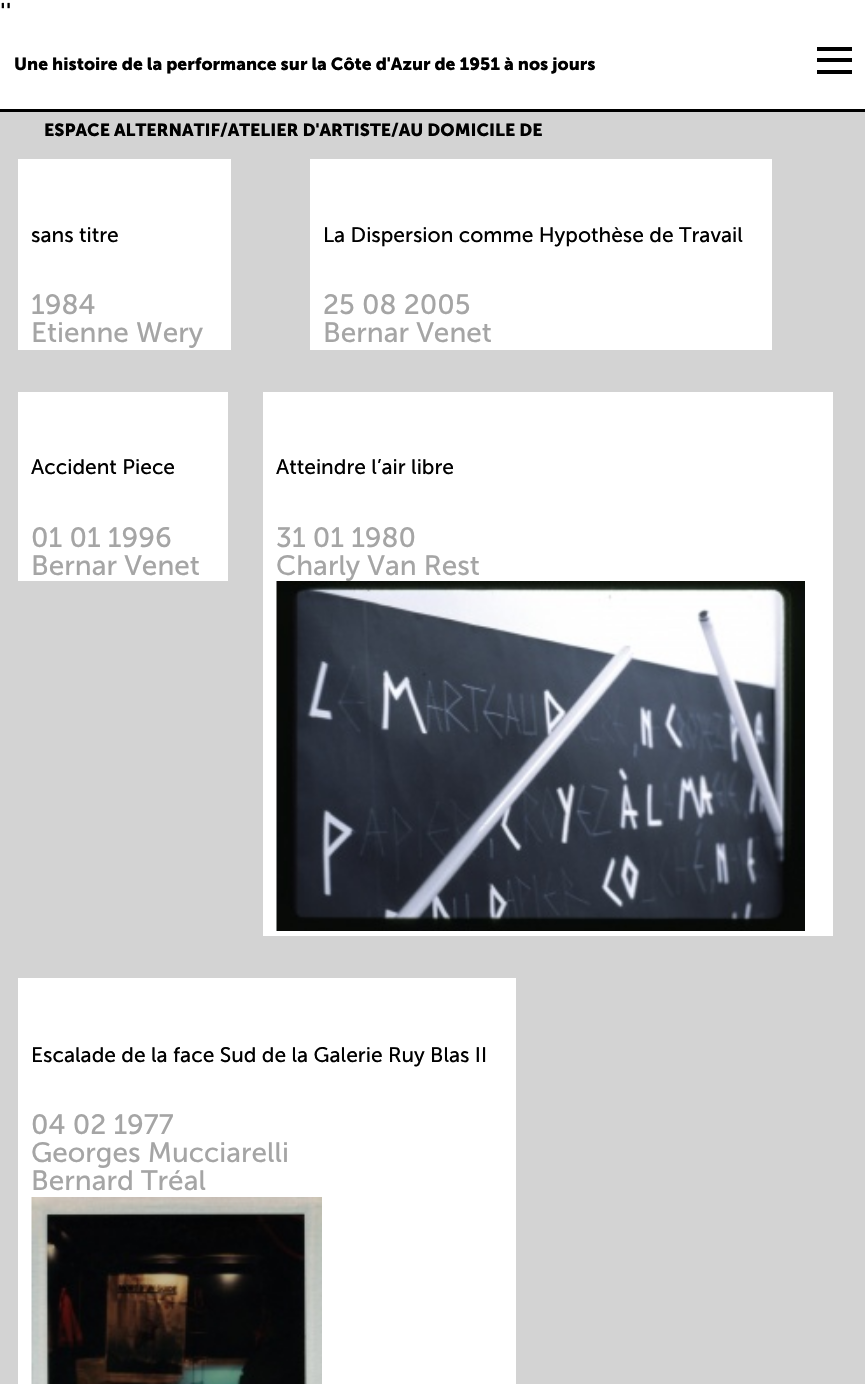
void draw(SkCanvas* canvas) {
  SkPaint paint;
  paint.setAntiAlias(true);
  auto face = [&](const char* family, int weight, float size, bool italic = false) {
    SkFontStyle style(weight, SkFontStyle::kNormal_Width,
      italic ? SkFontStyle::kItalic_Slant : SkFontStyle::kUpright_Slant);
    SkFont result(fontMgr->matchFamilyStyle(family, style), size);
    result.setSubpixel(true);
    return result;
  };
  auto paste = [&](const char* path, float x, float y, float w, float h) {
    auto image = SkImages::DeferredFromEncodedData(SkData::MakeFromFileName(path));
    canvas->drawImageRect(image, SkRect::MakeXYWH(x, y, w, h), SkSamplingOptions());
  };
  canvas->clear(0xffffffff);
  {
    const struct { float x, y, w, h; SkColor color; } items[] = {
      {0, 109, 865, 3, 0xff000000},
      {817, 47, 35, 4, 0xff000000},
      {817, 58, 35, 4, 0xff000000},
      {817, 70, 35, 4, 0xff000000},
      {0, 112, 865, 1272, 0xffd3d3d3},
      {18, 159, 213, 191, 0xffffffff},
      {310, 159, 462, 191, 0xffffffff},
      {18, 392, 210, 189, 0xffffffff},
      {263, 392, 570, 544, 0xffffffff},
    };
    for (auto [x, y, w, h, color] : items) {
      paint.setColor(color);
      canvas->drawRect(SkRect::MakeXYWH(x, y, w, h), paint);
    }
  }
  paste("img/1.png", 276, 581, 529, 350);
  canvas->drawRect(SkRect::MakeXYWH(18, 978, 498, 406), paint);
  paste("img/2.png", 31, 1197, 291, 187);
  auto f0 = face("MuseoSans", 400, 28);
  paint.setColor(0xff000000);
  canvas->drawString("''", 0, 23, f0, paint);
  auto f1 = face("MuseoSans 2", 400, 17.5f);
  canvas->drawString("Une histoire de la performance sur la Côte d'Azur de 1951 à nos jours", 14, 70, f1, paint);
  canvas->drawString("ESPACE ALTERNATIF/ATELIER D'ARTISTE/AU DOMICILE DE", 44, 136, f1, paint);
  auto f2 = face("MuseoSans", 400, 21);
  canvas->drawString("sans titre", 31, 242, f2, paint);
  paint.setColor(0xffa5a5a5);
  canvas->drawString("1984", 31, 314, f0, paint);
  canvas->drawString("Etienne Wery", 31, 342, f0, paint);
  paint.setColor(0xff000000);
  canvas->drawString("La Dispersion comme Hypothèse de Travail", 323, 242, f2, paint);
  paint.setColor(0xffa5a5a5);
  canvas->drawString("25 08 2005", 323, 314, f0, paint);
  canvas->drawString("Bernar Venet", 323, 342, f0, paint);
  paint.setColor(0xff000000);
  canvas->drawString("Accident Piece", 31, 474, f2, paint);
  paint.setColor(0xffa5a5a5);
  canvas->drawString("01 01 1996", 31, 547, f0, paint);
  canvas->drawString("Bernar Venet", 31, 575, f0, paint);
  paint.setColor(0xff000000);
  canvas->drawString("Atteindre l’air libre", 276, 474, f2, paint);
  paint.setColor(0xffa5a5a5);
  canvas->drawString("31 01 1980", 276, 547, f0, paint);
  canvas->drawString("Charly Van Rest", 276, 575, f0, paint);
  paint.setColor(0xff000000);
  canvas->drawString("Escalade de la face Sud de la Galerie Ruy Blas II", 31, 1062, f2, paint);
  paint.setColor(0xffa5a5a5);
  {
    const struct { const char* s; float x, y; } items[] = {
      {"04 02 1977", 31, 1134},
      {"Georges Mucciarelli", 31, 1162},
      {"Bernard Tréal", 31, 1190},
    };
    for (auto [s, x, y] : items) {
      canvas->drawString(s, x, y, f0, paint);
    }
  }
}
